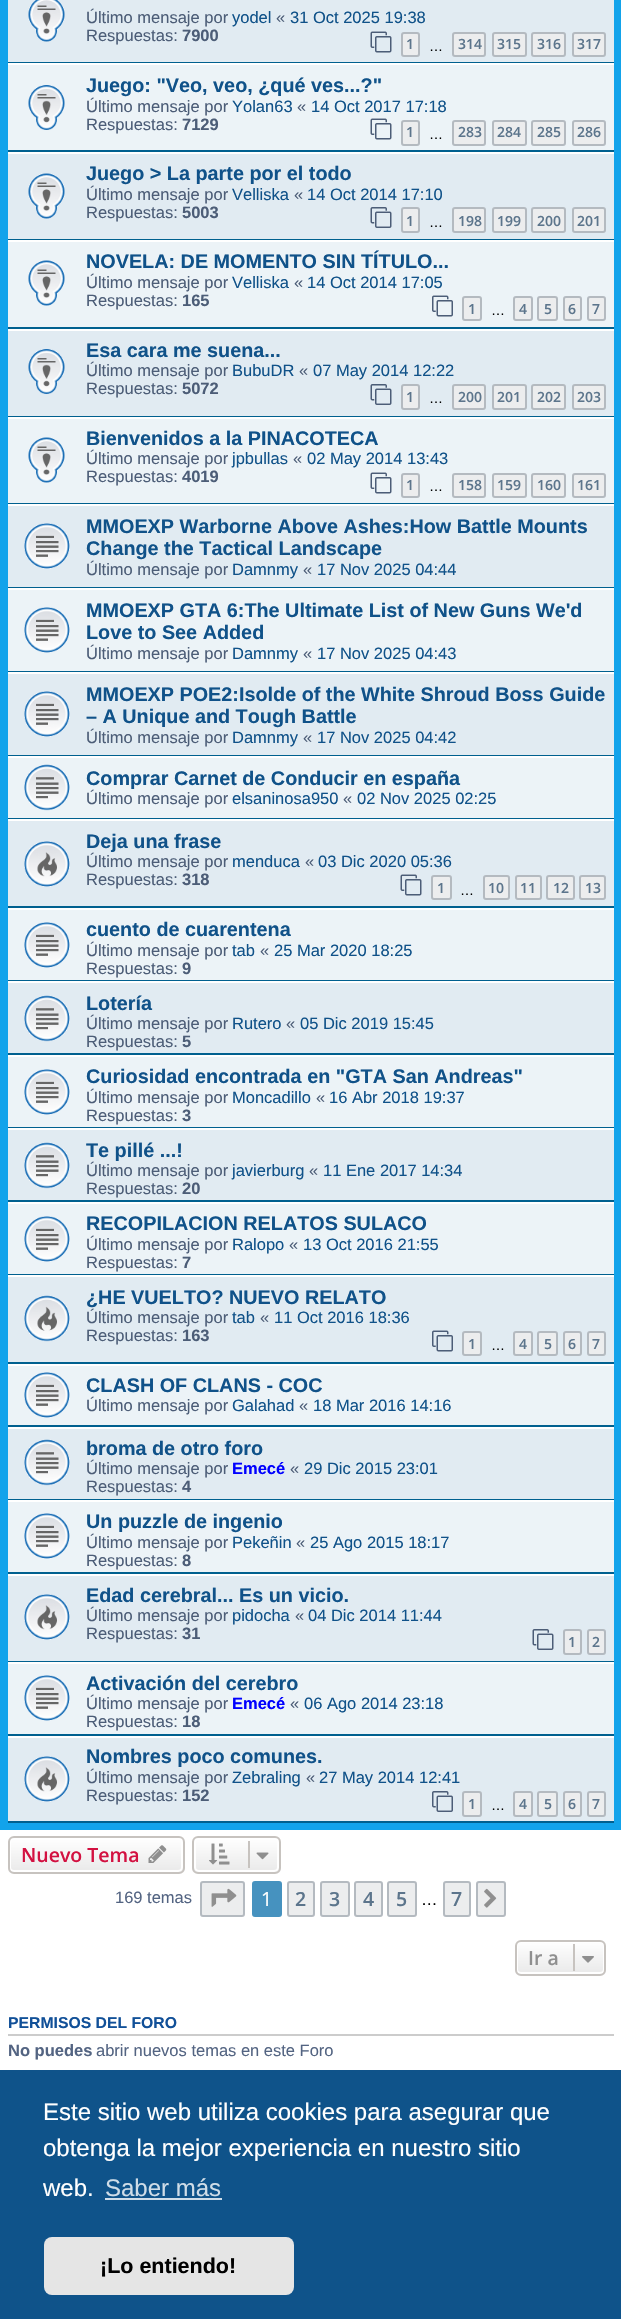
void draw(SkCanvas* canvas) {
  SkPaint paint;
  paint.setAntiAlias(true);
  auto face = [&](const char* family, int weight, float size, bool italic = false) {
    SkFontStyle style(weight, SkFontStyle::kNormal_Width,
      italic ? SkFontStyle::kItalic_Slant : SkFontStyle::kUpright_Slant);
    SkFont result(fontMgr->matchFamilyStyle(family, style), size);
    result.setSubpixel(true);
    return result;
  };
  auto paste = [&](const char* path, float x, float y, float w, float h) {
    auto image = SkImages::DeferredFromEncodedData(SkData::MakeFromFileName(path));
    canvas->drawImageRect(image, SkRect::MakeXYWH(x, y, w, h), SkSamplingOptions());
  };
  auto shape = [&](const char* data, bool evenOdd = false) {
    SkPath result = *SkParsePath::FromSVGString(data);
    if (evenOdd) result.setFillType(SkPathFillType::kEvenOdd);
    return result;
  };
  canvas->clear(0xffffffff);
  {
    const struct { float x, y, w, h; SkColor color; } items[] = {
      {0, 0, 621, 1830, 0xff12a3eb},
      {8, 0, 606, 62, 0xffe1ebf2},
      {8, 62, 606, 1, 0xff00608f},
    };
    for (auto [x, y, w, h, color] : items) {
      paint.setColor(color);
      canvas->drawRect(SkRect::MakeXYWH(x, y, w, h), paint);
    }
  }
  paste("img/1.png", 28, 0, 37, 42);
  paste("img/2.png", 370, 31, 22, 22);
  paint.setColor(0xffecedee);
  canvas->drawRoundRect(SkRect::MakeXYWH(402, 33, 17, 23), 2, 2, paint);
  paint.setStroke(true);
  paint.setStrokeWidth(2);
  paint.setColor(0xffb4bac0);
  canvas->drawRoundRect(SkRect::MakeXYWH(402, 33, 17, 23), 2, 2, paint);
  paint.setStroke(false);
  paint.setColor(0xffecedee);
  canvas->drawRoundRect(SkRect::MakeXYWH(453, 33, 32, 23), 2, 2, paint);
  paint.setStroke(true);
  paint.setColor(0xffb4bac0);
  canvas->drawRoundRect(SkRect::MakeXYWH(453, 33, 32, 23), 2, 2, paint);
  paint.setStroke(false);
  paint.setColor(0xffecedee);
  canvas->drawRoundRect(SkRect::MakeXYWH(493, 33, 33, 23), 2, 2, paint);
  paint.setStroke(true);
  paint.setColor(0xffb4bac0);
  canvas->drawRoundRect(SkRect::MakeXYWH(493, 33, 33, 23), 2, 2, paint);
  paint.setStroke(false);
  paint.setColor(0xffecedee);
  canvas->drawRoundRect(SkRect::MakeXYWH(532, 33, 33, 23), 2, 2, paint);
  paint.setStroke(true);
  paint.setColor(0xffb4bac0);
  canvas->drawRoundRect(SkRect::MakeXYWH(532, 33, 33, 23), 2, 2, paint);
  paint.setStroke(false);
  paint.setColor(0xffecedee);
  canvas->drawRoundRect(SkRect::MakeXYWH(573, 33, 32, 23), 2, 2, paint);
  paint.setStroke(true);
  paint.setColor(0xffb4bac0);
  canvas->drawRoundRect(SkRect::MakeXYWH(573, 33, 32, 23), 2, 2, paint);
  paint.setStroke(false);
  {
    const struct { float x, y, w, h; SkColor color; } items[] = {
      {8, 65, 606, 85, 0xffecf3f7},
      {8, 63, 606, 2, 0xffffffff},
      {8, 150, 606, 2, 0xff00608f},
    };
    for (auto [x, y, w, h, color] : items) {
      paint.setColor(color);
      canvas->drawRect(SkRect::MakeXYWH(x, y, w, h), paint);
    }
  }
  paste("img/3.png", 28, 85, 37, 45);
  paste("img/4.png", 370, 118, 22, 22);
  paint.setColor(0xffecedee);
  canvas->drawRoundRect(SkRect::MakeXYWH(402, 121, 17, 24), 2, 2, paint);
  paint.setStroke(true);
  paint.setColor(0xffb4bac0);
  canvas->drawRoundRect(SkRect::MakeXYWH(402, 121, 17, 24), 2, 2, paint);
  paint.setStroke(false);
  paint.setColor(0xffecedee);
  canvas->drawRoundRect(SkRect::MakeXYWH(453, 121, 32, 24), 2, 2, paint);
  paint.setStroke(true);
  paint.setColor(0xffb4bac0);
  canvas->drawRoundRect(SkRect::MakeXYWH(453, 121, 32, 24), 2, 2, paint);
  paint.setStroke(false);
  paint.setColor(0xffecedee);
  canvas->drawRoundRect(SkRect::MakeXYWH(493, 121, 33, 24), 2, 2, paint);
  paint.setStroke(true);
  paint.setColor(0xffb4bac0);
  canvas->drawRoundRect(SkRect::MakeXYWH(493, 121, 33, 24), 2, 2, paint);
  paint.setStroke(false);
  paint.setColor(0xffecedee);
  canvas->drawRoundRect(SkRect::MakeXYWH(532, 121, 33, 24), 2, 2, paint);
  paint.setStroke(true);
  paint.setColor(0xffb4bac0);
  canvas->drawRoundRect(SkRect::MakeXYWH(532, 121, 33, 24), 2, 2, paint);
  paint.setStroke(false);
  paint.setColor(0xffecedee);
  canvas->drawRoundRect(SkRect::MakeXYWH(573, 121, 32, 24), 2, 2, paint);
  paint.setStroke(true);
  paint.setColor(0xffb4bac0);
  canvas->drawRoundRect(SkRect::MakeXYWH(573, 121, 32, 24), 2, 2, paint);
  paint.setStroke(false);
  {
    const struct { float x, y, w, h; SkColor color; } items[] = {
      {8, 154, 606, 85, 0xffe1ebf2},
      {8, 152, 606, 2, 0xffffffff},
      {8, 239, 606, 1, 0xff00608f},
    };
    for (auto [x, y, w, h, color] : items) {
      paint.setColor(color);
      canvas->drawRect(SkRect::MakeXYWH(x, y, w, h), paint);
    }
  }
  paste("img/5.png", 28, 173, 37, 46);
  paste("img/6.png", 370, 207, 22, 21);
  paint.setColor(0xffecedee);
  canvas->drawRoundRect(SkRect::MakeXYWH(402, 208, 17, 24), 2, 2, paint);
  paint.setStroke(true);
  paint.setColor(0xffb4bac0);
  canvas->drawRoundRect(SkRect::MakeXYWH(402, 208, 17, 24), 2, 2, paint);
  paint.setStroke(false);
  paint.setColor(0xffecedee);
  canvas->drawRoundRect(SkRect::MakeXYWH(453, 208, 32, 24), 2, 2, paint);
  paint.setStroke(true);
  paint.setColor(0xffb4bac0);
  canvas->drawRoundRect(SkRect::MakeXYWH(453, 208, 32, 24), 2, 2, paint);
  paint.setStroke(false);
  paint.setColor(0xffecedee);
  canvas->drawRoundRect(SkRect::MakeXYWH(493, 208, 33, 24), 2, 2, paint);
  paint.setStroke(true);
  paint.setColor(0xffb4bac0);
  canvas->drawRoundRect(SkRect::MakeXYWH(493, 208, 33, 24), 2, 2, paint);
  paint.setStroke(false);
  paint.setColor(0xffecedee);
  canvas->drawRoundRect(SkRect::MakeXYWH(532, 208, 33, 24), 2, 2, paint);
  paint.setStroke(true);
  paint.setColor(0xffb4bac0);
  canvas->drawRoundRect(SkRect::MakeXYWH(532, 208, 33, 24), 2, 2, paint);
  paint.setStroke(false);
  paint.setColor(0xffecedee);
  canvas->drawRoundRect(SkRect::MakeXYWH(573, 208, 32, 24), 2, 2, paint);
  paint.setStroke(true);
  paint.setColor(0xffb4bac0);
  canvas->drawRoundRect(SkRect::MakeXYWH(573, 208, 32, 24), 2, 2, paint);
  paint.setStroke(false);
  {
    const struct { float x, y, w, h; SkColor color; } items[] = {
      {8, 242, 606, 85, 0xffecf3f7},
      {8, 240, 606, 2, 0xffffffff},
      {8, 327, 606, 2, 0xff00608f},
    };
    for (auto [x, y, w, h, color] : items) {
      paint.setColor(color);
      canvas->drawRect(SkRect::MakeXYWH(x, y, w, h), paint);
    }
  }
  paste("img/7.png", 28, 260, 37, 46);
  paste("img/8.png", 432, 295, 21, 22);
  paint.setColor(0xffecedee);
  canvas->drawRoundRect(SkRect::MakeXYWH(463, 297, 18, 23), 2, 2, paint);
  paint.setStroke(true);
  paint.setColor(0xffb4bac0);
  canvas->drawRoundRect(SkRect::MakeXYWH(463, 297, 18, 23), 2, 2, paint);
  paint.setStroke(false);
  paint.setColor(0xffecedee);
  canvas->drawRoundRect(SkRect::MakeXYWH(514, 297, 18, 23), 2, 2, paint);
  paint.setStroke(true);
  paint.setColor(0xffb4bac0);
  canvas->drawRoundRect(SkRect::MakeXYWH(514, 297, 18, 23), 2, 2, paint);
  paint.setStroke(false);
  paint.setColor(0xffecedee);
  canvas->drawRoundRect(SkRect::MakeXYWH(538, 297, 19, 23), 2, 2, paint);
  paint.setStroke(true);
  paint.setColor(0xffb4bac0);
  canvas->drawRoundRect(SkRect::MakeXYWH(538, 297, 19, 23), 2, 2, paint);
  paint.setStroke(false);
  paint.setColor(0xffecedee);
  canvas->drawRoundRect(SkRect::MakeXYWH(564, 297, 17, 23), 2, 2, paint);
  paint.setStroke(true);
  paint.setColor(0xffb4bac0);
  canvas->drawRoundRect(SkRect::MakeXYWH(564, 297, 17, 23), 2, 2, paint);
  paint.setStroke(false);
  paint.setColor(0xffecedee);
  canvas->drawRoundRect(SkRect::MakeXYWH(588, 297, 17, 23), 2, 2, paint);
  paint.setStroke(true);
  paint.setColor(0xffb4bac0);
  canvas->drawRoundRect(SkRect::MakeXYWH(588, 297, 17, 23), 2, 2, paint);
  paint.setStroke(false);
  {
    const struct { float x, y, w, h; SkColor color; } items[] = {
      {8, 331, 606, 85, 0xffe1ebf2},
      {8, 329, 606, 2, 0xffffffff},
      {8, 416, 606, 1, 0xff00608f},
    };
    for (auto [x, y, w, h, color] : items) {
      paint.setColor(color);
      canvas->drawRect(SkRect::MakeXYWH(x, y, w, h), paint);
    }
  }
  paste("img/9.png", 28, 349, 37, 45);
  paste("img/6.png", 370, 384, 22, 21);
  paint.setColor(0xffecedee);
  canvas->drawRoundRect(SkRect::MakeXYWH(402, 385, 17, 24), 2, 2, paint);
  paint.setStroke(true);
  paint.setColor(0xffb4bac0);
  canvas->drawRoundRect(SkRect::MakeXYWH(402, 385, 17, 24), 2, 2, paint);
  paint.setStroke(false);
  paint.setColor(0xffecedee);
  canvas->drawRoundRect(SkRect::MakeXYWH(453, 385, 32, 24), 2, 2, paint);
  paint.setStroke(true);
  paint.setColor(0xffb4bac0);
  canvas->drawRoundRect(SkRect::MakeXYWH(453, 385, 32, 24), 2, 2, paint);
  paint.setStroke(false);
  paint.setColor(0xffecedee);
  canvas->drawRoundRect(SkRect::MakeXYWH(493, 385, 33, 24), 2, 2, paint);
  paint.setStroke(true);
  paint.setColor(0xffb4bac0);
  canvas->drawRoundRect(SkRect::MakeXYWH(493, 385, 33, 24), 2, 2, paint);
  paint.setStroke(false);
  paint.setColor(0xffecedee);
  canvas->drawRoundRect(SkRect::MakeXYWH(532, 385, 33, 24), 2, 2, paint);
  paint.setStroke(true);
  paint.setColor(0xffb4bac0);
  canvas->drawRoundRect(SkRect::MakeXYWH(532, 385, 33, 24), 2, 2, paint);
  paint.setStroke(false);
  paint.setColor(0xffecedee);
  canvas->drawRoundRect(SkRect::MakeXYWH(573, 385, 32, 24), 2, 2, paint);
  paint.setStroke(true);
  paint.setColor(0xffb4bac0);
  canvas->drawRoundRect(SkRect::MakeXYWH(573, 385, 32, 24), 2, 2, paint);
  paint.setStroke(false);
  {
    const struct { float x, y, w, h; SkColor color; } items[] = {
      {8, 419, 606, 84, 0xffecf3f7},
      {8, 417, 606, 2, 0xffffffff},
      {8, 503, 606, 1, 0xff00608f},
    };
    for (auto [x, y, w, h, color] : items) {
      paint.setColor(color);
      canvas->drawRect(SkRect::MakeXYWH(x, y, w, h), paint);
    }
  }
  paste("img/7.png", 28, 437, 37, 46);
  paste("img/4.png", 370, 472, 22, 22);
  paint.setColor(0xffecedee);
  canvas->drawRoundRect(SkRect::MakeXYWH(402, 474, 17, 23), 2, 2, paint);
  paint.setStroke(true);
  paint.setColor(0xffb4bac0);
  canvas->drawRoundRect(SkRect::MakeXYWH(402, 474, 17, 23), 2, 2, paint);
  paint.setStroke(false);
  paint.setColor(0xffecedee);
  canvas->drawRoundRect(SkRect::MakeXYWH(453, 474, 32, 23), 2, 2, paint);
  paint.setStroke(true);
  paint.setColor(0xffb4bac0);
  canvas->drawRoundRect(SkRect::MakeXYWH(453, 474, 32, 23), 2, 2, paint);
  paint.setStroke(false);
  paint.setColor(0xffecedee);
  canvas->drawRoundRect(SkRect::MakeXYWH(493, 474, 33, 23), 2, 2, paint);
  paint.setStroke(true);
  paint.setColor(0xffb4bac0);
  canvas->drawRoundRect(SkRect::MakeXYWH(493, 474, 33, 23), 2, 2, paint);
  paint.setStroke(false);
  paint.setColor(0xffecedee);
  canvas->drawRoundRect(SkRect::MakeXYWH(532, 474, 33, 23), 2, 2, paint);
  paint.setStroke(true);
  paint.setColor(0xffb4bac0);
  canvas->drawRoundRect(SkRect::MakeXYWH(532, 474, 33, 23), 2, 2, paint);
  paint.setStroke(false);
  paint.setColor(0xffecedee);
  canvas->drawRoundRect(SkRect::MakeXYWH(573, 474, 32, 23), 2, 2, paint);
  paint.setStroke(true);
  paint.setColor(0xffb4bac0);
  canvas->drawRoundRect(SkRect::MakeXYWH(573, 474, 32, 23), 2, 2, paint);
  paint.setStroke(false);
  {
    const struct { float x, y, w, h; SkColor color; } items[] = {
      {8, 506, 606, 81, 0xffe1ebf2},
      {8, 504, 606, 2, 0xffffffff},
      {8, 587, 606, 1, 0xff00608f},
    };
    for (auto [x, y, w, h, color] : items) {
      paint.setColor(color);
      canvas->drawRect(SkRect::MakeXYWH(x, y, w, h), paint);
    }
  }
  paste("img/10.png", 24, 523, 46, 46);
  {
    const struct { float x, y, w, h; SkColor color; } items[] = {
      {8, 590, 606, 81, 0xffecf3f7},
      {8, 588, 606, 2, 0xffffffff},
      {8, 671, 606, 1, 0xff00608f},
    };
    for (auto [x, y, w, h, color] : items) {
      paint.setColor(color);
      canvas->drawRect(SkRect::MakeXYWH(x, y, w, h), paint);
    }
  }
  paste("img/11.png", 24, 607, 46, 46);
  {
    const struct { float x, y, w, h; SkColor color; } items[] = {
      {8, 674, 606, 81, 0xffe1ebf2},
      {8, 672, 606, 2, 0xffffffff},
      {8, 755, 606, 1, 0xff00608f},
    };
    for (auto [x, y, w, h, color] : items) {
      paint.setColor(color);
      canvas->drawRect(SkRect::MakeXYWH(x, y, w, h), paint);
    }
  }
  paste("img/10.png", 24, 691, 46, 46);
  {
    const struct { float x, y, w, h; SkColor color; } items[] = {
      {8, 758, 606, 60, 0xffecf3f7},
      {8, 756, 606, 2, 0xffffffff},
      {8, 818, 606, 1, 0xff00608f},
    };
    for (auto [x, y, w, h, color] : items) {
      paint.setColor(color);
      canvas->drawRect(SkRect::MakeXYWH(x, y, w, h), paint);
    }
  }
  paste("img/12.png", 24, 764, 46, 47);
  {
    const struct { float x, y, w, h; SkColor color; } items[] = {
      {8, 821, 606, 85, 0xffe1ebf2},
      {8, 819, 606, 2, 0xffffffff},
      {8, 906, 606, 2, 0xff00608f},
    };
    for (auto [x, y, w, h, color] : items) {
      paint.setColor(color);
      canvas->drawRect(SkRect::MakeXYWH(x, y, w, h), paint);
    }
  }
  paste("img/13.png", 24, 841, 46, 46);
  paste("img/2.png", 400, 874, 22, 22);
  paint.setColor(0xffecedee);
  canvas->drawRoundRect(SkRect::MakeXYWH(432, 876, 19, 23), 2, 2, paint);
  paint.setStroke(true);
  paint.setColor(0xffb4bac0);
  canvas->drawRoundRect(SkRect::MakeXYWH(432, 876, 19, 23), 2, 2, paint);
  paint.setStroke(false);
  paint.setColor(0xffecedee);
  canvas->drawRoundRect(SkRect::MakeXYWH(484, 876, 25, 23), 2, 2, paint);
  paint.setStroke(true);
  paint.setColor(0xffb4bac0);
  canvas->drawRoundRect(SkRect::MakeXYWH(484, 876, 25, 23), 2, 2, paint);
  paint.setStroke(false);
  paint.setColor(0xffecedee);
  canvas->drawRoundRect(SkRect::MakeXYWH(516, 876, 25, 23), 2, 2, paint);
  paint.setStroke(true);
  paint.setColor(0xffb4bac0);
  canvas->drawRoundRect(SkRect::MakeXYWH(516, 876, 25, 23), 2, 2, paint);
  paint.setStroke(false);
  paint.setColor(0xffecedee);
  canvas->drawRoundRect(SkRect::MakeXYWH(547, 876, 27, 23), 2, 2, paint);
  paint.setStroke(true);
  paint.setColor(0xffb4bac0);
  canvas->drawRoundRect(SkRect::MakeXYWH(547, 876, 27, 23), 2, 2, paint);
  paint.setStroke(false);
  paint.setColor(0xffecedee);
  canvas->drawRoundRect(SkRect::MakeXYWH(580, 876, 25, 23), 2, 2, paint);
  paint.setStroke(true);
  paint.setColor(0xffb4bac0);
  canvas->drawRoundRect(SkRect::MakeXYWH(580, 876, 25, 23), 2, 2, paint);
  paint.setStroke(false);
  {
    const struct { float x, y, w, h; SkColor color; } items[] = {
      {8, 910, 606, 70, 0xffecf3f7},
      {8, 908, 606, 2, 0xffffffff},
      {8, 980, 606, 1, 0xff00608f},
    };
    for (auto [x, y, w, h, color] : items) {
      paint.setColor(color);
      canvas->drawRect(SkRect::MakeXYWH(x, y, w, h), paint);
    }
  }
  paste("img/11.png", 24, 922, 46, 46);
  {
    const struct { float x, y, w, h; SkColor color; } items[] = {
      {8, 983, 606, 70, 0xffe1ebf2},
      {8, 981, 606, 2, 0xffffffff},
      {8, 1053, 606, 2, 0xff00608f},
    };
    for (auto [x, y, w, h, color] : items) {
      paint.setColor(color);
      canvas->drawRect(SkRect::MakeXYWH(x, y, w, h), paint);
    }
  }
  paste("img/14.png", 24, 995, 46, 47);
  {
    const struct { float x, y, w, h; SkColor color; } items[] = {
      {8, 1057, 606, 70, 0xffecf3f7},
      {8, 1055, 606, 2, 0xffffffff},
      {8, 1127, 606, 1, 0xff00608f},
    };
    for (auto [x, y, w, h, color] : items) {
      paint.setColor(color);
      canvas->drawRect(SkRect::MakeXYWH(x, y, w, h), paint);
    }
  }
  paste("img/11.png", 24, 1069, 46, 46);
  {
    const struct { float x, y, w, h; SkColor color; } items[] = {
      {8, 1130, 606, 70, 0xffe1ebf2},
      {8, 1128, 606, 2, 0xffffffff},
      {8, 1200, 606, 2, 0xff00608f},
    };
    for (auto [x, y, w, h, color] : items) {
      paint.setColor(color);
      canvas->drawRect(SkRect::MakeXYWH(x, y, w, h), paint);
    }
  }
  paste("img/14.png", 24, 1142, 46, 47);
  {
    const struct { float x, y, w, h; SkColor color; } items[] = {
      {8, 1204, 606, 70, 0xffecf3f7},
      {8, 1202, 606, 2, 0xffffffff},
      {8, 1274, 606, 1, 0xff00608f},
    };
    for (auto [x, y, w, h, color] : items) {
      paint.setColor(color);
      canvas->drawRect(SkRect::MakeXYWH(x, y, w, h), paint);
    }
  }
  paste("img/11.png", 24, 1216, 46, 46);
  {
    const struct { float x, y, w, h; SkColor color; } items[] = {
      {8, 1277, 606, 85, 0xffe1ebf2},
      {8, 1275, 606, 2, 0xffffffff},
      {8, 1362, 606, 2, 0xff00608f},
    };
    for (auto [x, y, w, h, color] : items) {
      paint.setColor(color);
      canvas->drawRect(SkRect::MakeXYWH(x, y, w, h), paint);
    }
  }
  paste("img/15.png", 24, 1295, 46, 47);
  paste("img/16.png", 432, 1330, 21, 22);
  paint.setColor(0xffecedee);
  canvas->drawRoundRect(SkRect::MakeXYWH(463, 1332, 18, 23), 2, 2, paint);
  paint.setStroke(true);
  paint.setColor(0xffb4bac0);
  canvas->drawRoundRect(SkRect::MakeXYWH(463, 1332, 18, 23), 2, 2, paint);
  paint.setStroke(false);
  paint.setColor(0xffecedee);
  canvas->drawRoundRect(SkRect::MakeXYWH(514, 1332, 18, 23), 2, 2, paint);
  paint.setStroke(true);
  paint.setColor(0xffb4bac0);
  canvas->drawRoundRect(SkRect::MakeXYWH(514, 1332, 18, 23), 2, 2, paint);
  paint.setStroke(false);
  paint.setColor(0xffecedee);
  canvas->drawRoundRect(SkRect::MakeXYWH(538, 1332, 19, 23), 2, 2, paint);
  paint.setStroke(true);
  paint.setColor(0xffb4bac0);
  canvas->drawRoundRect(SkRect::MakeXYWH(538, 1332, 19, 23), 2, 2, paint);
  paint.setStroke(false);
  paint.setColor(0xffecedee);
  canvas->drawRoundRect(SkRect::MakeXYWH(564, 1332, 17, 23), 2, 2, paint);
  paint.setStroke(true);
  paint.setColor(0xffb4bac0);
  canvas->drawRoundRect(SkRect::MakeXYWH(564, 1332, 17, 23), 2, 2, paint);
  paint.setStroke(false);
  paint.setColor(0xffecedee);
  canvas->drawRoundRect(SkRect::MakeXYWH(588, 1332, 17, 23), 2, 2, paint);
  paint.setStroke(true);
  paint.setColor(0xffb4bac0);
  canvas->drawRoundRect(SkRect::MakeXYWH(588, 1332, 17, 23), 2, 2, paint);
  paint.setStroke(false);
  {
    const struct { float x, y, w, h; SkColor color; } items[] = {
      {8, 1366, 606, 59, 0xffecf3f7},
      {8, 1364, 606, 2, 0xffffffff},
      {8, 1425, 606, 2, 0xff00608f},
    };
    for (auto [x, y, w, h, color] : items) {
      paint.setColor(color);
      canvas->drawRect(SkRect::MakeXYWH(x, y, w, h), paint);
    }
  }
  paste("img/11.png", 24, 1372, 46, 46);
  {
    const struct { float x, y, w, h; SkColor color; } items[] = {
      {8, 1429, 606, 70, 0xffe1ebf2},
      {8, 1427, 606, 2, 0xffffffff},
      {8, 1499, 606, 1, 0xff00608f},
    };
    for (auto [x, y, w, h, color] : items) {
      paint.setColor(color);
      canvas->drawRect(SkRect::MakeXYWH(x, y, w, h), paint);
    }
  }
  paste("img/14.png", 24, 1439, 46, 47);
  {
    const struct { float x, y, w, h; SkColor color; } items[] = {
      {8, 1502, 606, 70, 0xffecf3f7},
      {8, 1500, 606, 2, 0xffffffff},
      {8, 1572, 606, 2, 0xff00608f},
    };
    for (auto [x, y, w, h, color] : items) {
      paint.setColor(color);
      canvas->drawRect(SkRect::MakeXYWH(x, y, w, h), paint);
    }
  }
  paste("img/11.png", 24, 1513, 46, 46);
  {
    const struct { float x, y, w, h; SkColor color; } items[] = {
      {8, 1576, 606, 85, 0xffe1ebf2},
      {8, 1574, 606, 2, 0xffffffff},
      {8, 1661, 606, 1, 0xff00608f},
    };
    for (auto [x, y, w, h, color] : items) {
      paint.setColor(color);
      canvas->drawRect(SkRect::MakeXYWH(x, y, w, h), paint);
    }
  }
  paste("img/13.png", 24, 1594, 46, 46);
  paste("img/6.png", 532, 1629, 22, 21);
  paint.setColor(0xffecedee);
  canvas->drawRoundRect(SkRect::MakeXYWH(564, 1630, 17, 24), 2, 2, paint);
  paint.setStroke(true);
  paint.setColor(0xffb4bac0);
  canvas->drawRoundRect(SkRect::MakeXYWH(564, 1630, 17, 24), 2, 2, paint);
  paint.setStroke(false);
  paint.setColor(0xffecedee);
  canvas->drawRoundRect(SkRect::MakeXYWH(588, 1630, 17, 24), 2, 2, paint);
  paint.setStroke(true);
  paint.setColor(0xffb4bac0);
  canvas->drawRoundRect(SkRect::MakeXYWH(588, 1630, 17, 24), 2, 2, paint);
  paint.setStroke(false);
  {
    const struct { float x, y, w, h; SkColor color; } items[] = {
      {8, 1664, 606, 70, 0xffecf3f7},
      {8, 1662, 606, 2, 0xffffffff},
      {8, 1734, 606, 2, 0xff00608f},
    };
    for (auto [x, y, w, h, color] : items) {
      paint.setColor(color);
      canvas->drawRect(SkRect::MakeXYWH(x, y, w, h), paint);
    }
  }
  paste("img/11.png", 24, 1675, 46, 46);
  {
    const struct { float x, y, w, h; SkColor color; } items[] = {
      {8, 1738, 606, 83, 0xffe1ebf2},
      {8, 1736, 606, 2, 0xffffffff},
      {8, 1821, 606, 2, 0xff00608f},
    };
    for (auto [x, y, w, h, color] : items) {
      paint.setColor(color);
      canvas->drawRect(SkRect::MakeXYWH(x, y, w, h), paint);
    }
  }
  paste("img/13.png", 24, 1756, 46, 46);
  paste("img/17.png", 432, 1791, 21, 21);
  paint.setColor(0xffecedee);
  canvas->drawRoundRect(SkRect::MakeXYWH(463, 1792, 18, 24), 2, 2, paint);
  paint.setStroke(true);
  paint.setColor(0xffb4bac0);
  canvas->drawRoundRect(SkRect::MakeXYWH(463, 1792, 18, 24), 2, 2, paint);
  paint.setStroke(false);
  paint.setColor(0xffecedee);
  canvas->drawRoundRect(SkRect::MakeXYWH(514, 1792, 18, 24), 2, 2, paint);
  paint.setStroke(true);
  paint.setColor(0xffb4bac0);
  canvas->drawRoundRect(SkRect::MakeXYWH(514, 1792, 18, 24), 2, 2, paint);
  paint.setStroke(false);
  paint.setColor(0xffecedee);
  canvas->drawRoundRect(SkRect::MakeXYWH(538, 1792, 19, 24), 2, 2, paint);
  paint.setStroke(true);
  paint.setColor(0xffb4bac0);
  canvas->drawRoundRect(SkRect::MakeXYWH(538, 1792, 19, 24), 2, 2, paint);
  paint.setStroke(false);
  paint.setColor(0xffecedee);
  canvas->drawRoundRect(SkRect::MakeXYWH(564, 1792, 17, 24), 2, 2, paint);
  paint.setStroke(true);
  paint.setColor(0xffb4bac0);
  canvas->drawRoundRect(SkRect::MakeXYWH(564, 1792, 17, 24), 2, 2, paint);
  paint.setStroke(false);
  paint.setColor(0xffecedee);
  canvas->drawRoundRect(SkRect::MakeXYWH(588, 1792, 17, 24), 2, 2, paint);
  paint.setStroke(true);
  paint.setColor(0xffb4bac0);
  canvas->drawRoundRect(SkRect::MakeXYWH(588, 1792, 17, 24), 2, 2, paint);
  canvas->save();
  canvas->clipPath(shape("M14 1836H179C182.5 1836 185 1838.5 185 1842V1868C185 1871.5 182.5 1874 179 1874H14C10.5 1874 8 1871.5 8 1868V1842C8 1838.5 10.5 1836 14 1836Z"), true);
  paint.setStroke(false);
  {
    const SkColor colors[] = {0xffffffff, 0xffe9e9e9};
    const float stops[] = {0, 1};
    const SkPoint ends[] = {{96, 1838}, {96, 1872}};
    paint.setShader(SkGradientShader::MakeLinear(ends, colors, stops, 2, SkTileMode::kClamp));
    paint.setAlpha(255);
  }
  canvas->drawRect(SkRect::MakeXYWH(8, 1838, 177, 34), paint);
  canvas->restore();
  paint.setStroke(true);
  paint.setShader(nullptr);
  paint.setColor(0xffffffff);
  canvas->drawRoundRect(SkRect::MakeXYWH(10, 1839, 172, 32), 4, 4, paint);
  paint.setColor(0xffc7c3bf);
  canvas->drawRoundRect(SkRect::MakeXYWH(9, 1837, 175, 36), 5, 5, paint);
  paste("img/18.png", 148, 1845, 19, 18);
  canvas->save();
  canvas->clipPath(shape("M198 1836H275C278.5 1836 281 1838.5 281 1842V1868C281 1871.5 278.5 1874 275 1874H198C194.5 1874 192 1871.5 192 1868V1842C192 1838.5 194.5 1836 198 1836Z"), true);
  paint.setStroke(false);
  {
    const SkColor colors[] = {0xffffffff, 0xffe9e9e9};
    const float stops[] = {0, 1};
    const SkPoint ends[] = {{236, 1838}, {236, 1872}};
    paint.setShader(SkGradientShader::MakeLinear(ends, colors, stops, 2, SkTileMode::kClamp));
    paint.setAlpha(255);
  }
  canvas->drawRect(SkRect::MakeXYWH(192, 1838, 89, 34), paint);
  canvas->restore();
  paint.setStroke(true);
  paint.setShader(nullptr);
  paint.setColor(0xffffffff);
  canvas->drawRoundRect(SkRect::MakeXYWH(195, 1839, 83, 32), 4, 4, paint);
  paint.setColor(0xffc7c3bf);
  canvas->drawRoundRect(SkRect::MakeXYWH(193, 1837, 87, 36), 5, 5, paint);
  paste("img/19.png", 209, 1843, 21, 22);
  paint.setStroke(false);
  canvas->drawRect(SkRect::MakeXYWH(248, 1841, 2, 27), paint);
  paste("img/20.png", 256, 1852, 13, 8);
  paint.setColor(0xffecedee);
  canvas->drawRoundRect(SkRect::MakeXYWH(201, 1882, 43, 34), 2, 2, paint);
  paint.setStroke(true);
  paint.setColor(0xffb4bac0);
  canvas->drawRoundRect(SkRect::MakeXYWH(201, 1882, 43, 34), 2, 2, paint);
  paste("img/21.png", 211, 1888, 26, 19);
  paint.setStroke(false);
  paint.setColor(0xff4692bf);
  canvas->drawRoundRect(SkRect::MakeXYWH(253, 1882, 28, 34), 2, 2, paint);
  paint.setStroke(true);
  canvas->drawRoundRect(SkRect::MakeXYWH(253, 1882, 28, 34), 2, 2, paint);
  paint.setStroke(false);
  paint.setColor(0xffecedee);
  canvas->drawRoundRect(SkRect::MakeXYWH(288, 1882, 26, 34), 2, 2, paint);
  paint.setStroke(true);
  paint.setColor(0xffb4bac0);
  canvas->drawRoundRect(SkRect::MakeXYWH(288, 1882, 26, 34), 2, 2, paint);
  paint.setStroke(false);
  paint.setColor(0xffecedee);
  canvas->drawRoundRect(SkRect::MakeXYWH(321, 1882, 28, 34), 2, 2, paint);
  paint.setStroke(true);
  paint.setColor(0xffb4bac0);
  canvas->drawRoundRect(SkRect::MakeXYWH(321, 1882, 28, 34), 2, 2, paint);
  paint.setStroke(false);
  paint.setColor(0xffecedee);
  canvas->drawRoundRect(SkRect::MakeXYWH(355, 1882, 27, 34), 2, 2, paint);
  paint.setStroke(true);
  paint.setColor(0xffb4bac0);
  canvas->drawRoundRect(SkRect::MakeXYWH(355, 1882, 27, 34), 2, 2, paint);
  paint.setStroke(false);
  paint.setColor(0xffecedee);
  canvas->drawRoundRect(SkRect::MakeXYWH(388, 1882, 28, 34), 2, 2, paint);
  paint.setStroke(true);
  paint.setColor(0xffb4bac0);
  canvas->drawRoundRect(SkRect::MakeXYWH(388, 1882, 28, 34), 2, 2, paint);
  paint.setStroke(false);
  paint.setColor(0xffecedee);
  canvas->drawRoundRect(SkRect::MakeXYWH(444, 1882, 26, 34), 2, 2, paint);
  paint.setStroke(true);
  paint.setColor(0xffb4bac0);
  canvas->drawRoundRect(SkRect::MakeXYWH(444, 1882, 26, 34), 2, 2, paint);
  paint.setStroke(false);
  paint.setColor(0xffecedee);
  canvas->drawRoundRect(SkRect::MakeXYWH(477, 1882, 28, 34), 2, 2, paint);
  paint.setStroke(true);
  paint.setColor(0xffb4bac0);
  canvas->drawRoundRect(SkRect::MakeXYWH(477, 1882, 28, 34), 2, 2, paint);
  paste("img/22.png", 484, 1888, 13, 20);
  canvas->save();
  canvas->clipPath(shape("M521 1940H600C603.5 1940 606 1942.5 606 1946V1970C606 1973.5 603.5 1976 600 1976H521C517.5 1976 515 1973.5 515 1970V1946C515 1942.5 517.5 1940 521 1940Z"), true);
  paint.setStroke(false);
  {
    const SkColor colors[] = {0xffffffff, 0xffe9e9e9};
    const float stops[] = {0, 1};
    const SkPoint ends[] = {{560, 1941}, {560, 1974}};
    paint.setShader(SkGradientShader::MakeLinear(ends, colors, stops, 2, SkTileMode::kClamp));
    paint.setAlpha(255);
  }
  canvas->drawRect(SkRect::MakeXYWH(515, 1941, 91, 33), paint);
  canvas->restore();
  paint.setStroke(true);
  paint.setShader(nullptr);
  paint.setColor(0xffffffff);
  canvas->drawRoundRect(SkRect::MakeXYWH(517, 1942, 87, 31), 4, 4, paint);
  paint.setColor(0xffc7c3bf);
  canvas->drawRoundRect(SkRect::MakeXYWH(516, 1941, 89, 34), 5, 5, paint);
  paint.setStroke(false);
  canvas->drawRect(SkRect::MakeXYWH(573, 1944, 2, 27), paint);
  paste("img/23.png", 582, 1956, 12, 7);
  {
    const struct { float x, y, w, h; SkColor color; } items[] = {
      {8, 2034, 606, 2, 0xffcccccc},
      {0, 2070, 621, 249, 0xff0f538a},
      {105, 2198, 117, 2, 0xffcfdde8},
    };
    for (auto [x, y, w, h, color] : items) {
      paint.setColor(color);
      canvas->drawRect(SkRect::MakeXYWH(x, y, w, h), paint);
    }
  }
  paint.setColor(0xffe5e5e5);
  canvas->drawRoundRect(SkRect::MakeXYWH(44, 2237, 250, 58), 8, 8, paint);
  auto f0 = face("Liberation Sans", 400, 16.5f);
  paint.setColor(0xff4c5d77);
  canvas->drawString("Último mensaje por", 86, 23, f0, paint);
  paint.setColor(0xff105289);
  canvas->drawString("yodel", 232, 23, f0, paint);
  paint.setColor(0xff4c5d77);
  canvas->drawString("«", 276, 23, f0, paint);
  paint.setColor(0xff105289);
  canvas->drawString("31 Oct 2025 19:38", 290, 23, f0, paint);
  paint.setColor(0xff4c5d77);
  canvas->drawString("Respuestas:", 86, 41, f0, paint);
  auto f1 = face("Liberation Sans", 700, 16.5f);
  canvas->drawString("7900", 182, 41, f1, paint);
  auto f2 = face("Open Sans", 600, 14);
  paint.setColor(0xff5c758c);
  canvas->drawString("1", 406, 49, f2, paint);
  auto f3 = face("Liberation Sans", 400, 14);
  paint.setColor(0xff000000);
  canvas->drawString("…", 429, 51, f3, paint);
  paint.setColor(0xff5c758c);
  {
    const struct { const char* s; float x, y; } items[] = {
      {"314", 458, 49},
      {"315", 497, 49},
      {"316", 537, 49},
      {"317", 577, 49},
    };
    for (auto [s, x, y] : items) {
      canvas->drawString(s, x, y, f2, paint);
    }
  }
  auto f4 = face("Liberation Sans", 700, 19.8f);
  paint.setColor(0xff105289);
  canvas->drawString("Juego: \"Veo, veo, ¿qué ves...?\"", 86, 92, f4, paint);
  paint.setColor(0xff4c5d77);
  canvas->drawString("Último mensaje por", 86, 112, f0, paint);
  paint.setColor(0xff105289);
  canvas->drawString("Yolan63", 232, 112, f0, paint);
  paint.setColor(0xff4c5d77);
  canvas->drawString("«", 297, 112, f0, paint);
  paint.setColor(0xff105289);
  canvas->drawString("14 Oct 2017 17:18", 311, 112, f0, paint);
  paint.setColor(0xff4c5d77);
  canvas->drawString("Respuestas:", 86, 130, f0, paint);
  canvas->drawString("7129", 182, 130, f1, paint);
  paint.setColor(0xff5c758c);
  canvas->drawString("1", 406, 137, f2, paint);
  paint.setColor(0xff000000);
  canvas->drawString("…", 429, 139, f3, paint);
  paint.setColor(0xff5c758c);
  {
    const struct { const char* s; float x, y; } items[] = {
      {"283", 458, 137},
      {"284", 497, 137},
      {"285", 537, 137},
      {"286", 577, 137},
    };
    for (auto [s, x, y] : items) {
      canvas->drawString(s, x, y, f2, paint);
    }
  }
  paint.setColor(0xff105289);
  canvas->drawString("Juego > La parte por el todo", 86, 180, f4, paint);
  paint.setColor(0xff4c5d77);
  canvas->drawString("Último mensaje por", 86, 200, f0, paint);
  paint.setColor(0xff105289);
  canvas->drawString("Velliska", 232, 200, f0, paint);
  paint.setColor(0xff4c5d77);
  canvas->drawString("«", 294, 200, f0, paint);
  paint.setColor(0xff105289);
  canvas->drawString("14 Oct 2014 17:10", 307, 200, f0, paint);
  paint.setColor(0xff4c5d77);
  canvas->drawString("Respuestas:", 86, 218, f0, paint);
  canvas->drawString("5003", 182, 218, f1, paint);
  paint.setColor(0xff5c758c);
  canvas->drawString("1", 406, 226, f2, paint);
  paint.setColor(0xff000000);
  canvas->drawString("…", 429, 227, f3, paint);
  paint.setColor(0xff5c758c);
  {
    const struct { const char* s; float x, y; } items[] = {
      {"198", 458, 226},
      {"199", 497, 226},
      {"200", 537, 226},
      {"201", 577, 226},
    };
    for (auto [s, x, y] : items) {
      canvas->drawString(s, x, y, f2, paint);
    }
  }
  paint.setColor(0xff105289);
  canvas->drawString("NOVELA: DE MOMENTO SIN TÍTULO...", 86, 268, f4, paint);
  paint.setColor(0xff4c5d77);
  canvas->drawString("Último mensaje por", 86, 288, f0, paint);
  paint.setColor(0xff105289);
  canvas->drawString("Velliska", 232, 288, f0, paint);
  paint.setColor(0xff4c5d77);
  canvas->drawString("«", 294, 288, f0, paint);
  paint.setColor(0xff105289);
  canvas->drawString("14 Oct 2014 17:05", 307, 288, f0, paint);
  paint.setColor(0xff4c5d77);
  canvas->drawString("Respuestas:", 86, 306, f0, paint);
  canvas->drawString("165", 182, 306, f1, paint);
  paint.setColor(0xff5c758c);
  canvas->drawString("1", 468, 314, f2, paint);
  paint.setColor(0xff000000);
  canvas->drawString("…", 491, 315, f3, paint);
  paint.setColor(0xff5c758c);
  {
    const struct { const char* s; float x, y; } items[] = {
      {"4", 519, 314},
      {"5", 544, 314},
      {"6", 568, 314},
      {"7", 592, 314},
    };
    for (auto [s, x, y] : items) {
      canvas->drawString(s, x, y, f2, paint);
    }
  }
  paint.setColor(0xff105289);
  canvas->drawString("Esa cara me suena...", 86, 357, f4, paint);
  paint.setColor(0xff4c5d77);
  canvas->drawString("Último mensaje por", 86, 376, f0, paint);
  paint.setColor(0xff105289);
  canvas->drawString("BubuDR", 232, 376, f0, paint);
  paint.setColor(0xff4c5d77);
  canvas->drawString("«", 299, 376, f0, paint);
  paint.setColor(0xff105289);
  canvas->drawString("07 May 2014 12:22", 313, 376, f0, paint);
  paint.setColor(0xff4c5d77);
  canvas->drawString("Respuestas:", 86, 394, f0, paint);
  canvas->drawString("5072", 182, 394, f1, paint);
  paint.setColor(0xff5c758c);
  canvas->drawString("1", 406, 402, f2, paint);
  paint.setColor(0xff000000);
  canvas->drawString("…", 429, 403, f3, paint);
  paint.setColor(0xff5c758c);
  {
    const struct { const char* s; float x, y; } items[] = {
      {"200", 458, 402},
      {"201", 497, 402},
      {"202", 537, 402},
      {"203", 577, 402},
    };
    for (auto [s, x, y] : items) {
      canvas->drawString(s, x, y, f2, paint);
    }
  }
  paint.setColor(0xff105289);
  canvas->drawString("Bienvenidos a la PINACOTECA", 86, 445, f4, paint);
  paint.setColor(0xff4c5d77);
  canvas->drawString("Último mensaje por", 86, 464, f0, paint);
  paint.setColor(0xff105289);
  canvas->drawString("jpbullas", 232, 464, f0, paint);
  paint.setColor(0xff4c5d77);
  canvas->drawString("«", 293, 464, f0, paint);
  paint.setColor(0xff105289);
  canvas->drawString("02 May 2014 13:43", 307, 464, f0, paint);
  paint.setColor(0xff4c5d77);
  canvas->drawString("Respuestas:", 86, 482, f0, paint);
  canvas->drawString("4019", 182, 482, f1, paint);
  paint.setColor(0xff5c758c);
  canvas->drawString("1", 406, 490, f2, paint);
  paint.setColor(0xff000000);
  canvas->drawString("…", 429, 491, f3, paint);
  paint.setColor(0xff5c758c);
  {
    const struct { const char* s; float x, y; } items[] = {
      {"158", 458, 490},
      {"159", 497, 490},
      {"160", 537, 490},
      {"161", 577, 490},
    };
    for (auto [s, x, y] : items) {
      canvas->drawString(s, x, y, f2, paint);
    }
  }
  paint.setColor(0xff105289);
  canvas->drawString("MMOEXP Warborne Above Ashes:How Battle Mounts", 86, 533, f4, paint);
  canvas->drawString("Change the Tactical Landscape", 86, 555, f4, paint);
  paint.setColor(0xff4c5d77);
  canvas->drawString("Último mensaje por", 86, 575, f0, paint);
  paint.setColor(0xff105289);
  canvas->drawString("Damnmy", 232, 575, f0, paint);
  paint.setColor(0xff4c5d77);
  canvas->drawString("«", 303, 575, f0, paint);
  paint.setColor(0xff105289);
  canvas->drawString("17 Nov 2025 04:44", 317, 575, f0, paint);
  canvas->drawString("MMOEXP GTA 6:The Ultimate List of New Guns We'd", 86, 617, f4, paint);
  canvas->drawString("Love to See Added", 86, 639, f4, paint);
  paint.setColor(0xff4c5d77);
  canvas->drawString("Último mensaje por", 86, 659, f0, paint);
  paint.setColor(0xff105289);
  canvas->drawString("Damnmy", 232, 659, f0, paint);
  paint.setColor(0xff4c5d77);
  canvas->drawString("«", 303, 659, f0, paint);
  paint.setColor(0xff105289);
  canvas->drawString("17 Nov 2025 04:43", 317, 659, f0, paint);
  canvas->drawString("MMOEXP POE2:Isolde of the White Shroud Boss Guide", 86, 701, f4, paint);
  canvas->drawString("– A Unique and Tough Battle", 86, 723, f4, paint);
  paint.setColor(0xff4c5d77);
  canvas->drawString("Último mensaje por", 86, 743, f0, paint);
  paint.setColor(0xff105289);
  canvas->drawString("Damnmy", 232, 743, f0, paint);
  paint.setColor(0xff4c5d77);
  canvas->drawString("«", 303, 743, f0, paint);
  paint.setColor(0xff105289);
  canvas->drawString("17 Nov 2025 04:42", 317, 743, f0, paint);
  canvas->drawString("Comprar Carnet de Conducir en españa", 86, 785, f4, paint);
  paint.setColor(0xff4c5d77);
  canvas->drawString("Último mensaje por", 86, 804, f0, paint);
  paint.setColor(0xff105289);
  canvas->drawString("elsaninosa950", 232, 804, f0, paint);
  paint.setColor(0xff4c5d77);
  canvas->drawString("«", 343, 804, f0, paint);
  paint.setColor(0xff105289);
  canvas->drawString("02 Nov 2025 02:25", 357, 804, f0, paint);
  canvas->drawString("Deja una frase", 86, 848, f4, paint);
  paint.setColor(0xff4c5d77);
  canvas->drawString("Último mensaje por", 86, 867, f0, paint);
  paint.setColor(0xff105289);
  canvas->drawString("menduca", 232, 867, f0, paint);
  paint.setColor(0xff4c5d77);
  canvas->drawString("«", 305, 867, f0, paint);
  paint.setColor(0xff105289);
  canvas->drawString("03 Dic 2020 05:36", 318, 867, f0, paint);
  paint.setColor(0xff4c5d77);
  canvas->drawString("Respuestas:", 86, 885, f0, paint);
  canvas->drawString("318", 182, 885, f1, paint);
  paint.setColor(0xff5c758c);
  canvas->drawString("1", 437, 893, f2, paint);
  paint.setColor(0xff000000);
  canvas->drawString("…", 460, 895, f3, paint);
  paint.setColor(0xff5c758c);
  {
    const struct { const char* s; float x, y; } items[] = {
      {"10", 488, 893},
      {"11", 520, 893},
      {"12", 553, 893},
      {"13", 585, 893},
    };
    for (auto [s, x, y] : items) {
      canvas->drawString(s, x, y, f2, paint);
    }
  }
  paint.setColor(0xff105289);
  canvas->drawString("cuento de cuarentena", 86, 936, f4, paint);
  paint.setColor(0xff4c5d77);
  canvas->drawString("Último mensaje por", 86, 956, f0, paint);
  paint.setColor(0xff105289);
  canvas->drawString("tab", 232, 956, f0, paint);
  paint.setColor(0xff4c5d77);
  canvas->drawString("«", 260, 956, f0, paint);
  paint.setColor(0xff105289);
  canvas->drawString("25 Mar 2020 18:25", 274, 956, f0, paint);
  paint.setColor(0xff4c5d77);
  canvas->drawString("Respuestas:", 86, 974, f0, paint);
  canvas->drawString("9", 182, 974, f1, paint);
  paint.setColor(0xff105289);
  canvas->drawString("Lotería", 86, 1010, f4, paint);
  paint.setColor(0xff4c5d77);
  canvas->drawString("Último mensaje por", 86, 1029, f0, paint);
  paint.setColor(0xff105289);
  canvas->drawString("Rutero", 232, 1029, f0, paint);
  paint.setColor(0xff4c5d77);
  canvas->drawString("«", 286, 1029, f0, paint);
  paint.setColor(0xff105289);
  canvas->drawString("05 Dic 2019 15:45", 300, 1029, f0, paint);
  paint.setColor(0xff4c5d77);
  canvas->drawString("Respuestas:", 86, 1047, f0, paint);
  canvas->drawString("5", 182, 1047, f1, paint);
  paint.setColor(0xff105289);
  canvas->drawString("Curiosidad encontrada en \"GTA San Andreas\"", 86, 1083, f4, paint);
  paint.setColor(0xff4c5d77);
  canvas->drawString("Último mensaje por", 86, 1103, f0, paint);
  paint.setColor(0xff105289);
  canvas->drawString("Moncadillo", 232, 1103, f0, paint);
  paint.setColor(0xff4c5d77);
  canvas->drawString("«", 316, 1103, f0, paint);
  paint.setColor(0xff105289);
  canvas->drawString("16 Abr 2018 19:37", 329, 1103, f0, paint);
  paint.setColor(0xff4c5d77);
  canvas->drawString("Respuestas:", 86, 1121, f0, paint);
  canvas->drawString("3", 182, 1121, f1, paint);
  paint.setColor(0xff105289);
  canvas->drawString("Te pillé ...!", 86, 1157, f4, paint);
  paint.setColor(0xff4c5d77);
  canvas->drawString("Último mensaje por", 86, 1176, f0, paint);
  paint.setColor(0xff105289);
  canvas->drawString("javierburg", 232, 1176, f0, paint);
  paint.setColor(0xff4c5d77);
  canvas->drawString("«", 309, 1176, f0, paint);
  paint.setColor(0xff105289);
  canvas->drawString("11 Ene 2017 14:34", 323, 1176, f0, paint);
  paint.setColor(0xff4c5d77);
  canvas->drawString("Respuestas:", 86, 1194, f0, paint);
  canvas->drawString("20", 182, 1194, f1, paint);
  paint.setColor(0xff105289);
  canvas->drawString("RECOPILACION RELATOS SULACO", 86, 1230, f4, paint);
  paint.setColor(0xff4c5d77);
  canvas->drawString("Último mensaje por", 86, 1250, f0, paint);
  paint.setColor(0xff105289);
  canvas->drawString("Ralopo", 232, 1250, f0, paint);
  paint.setColor(0xff4c5d77);
  canvas->drawString("«", 289, 1250, f0, paint);
  paint.setColor(0xff105289);
  canvas->drawString("13 Oct 2016 21:55", 303, 1250, f0, paint);
  paint.setColor(0xff4c5d77);
  canvas->drawString("Respuestas:", 86, 1268, f0, paint);
  canvas->drawString("7", 182, 1268, f1, paint);
  paint.setColor(0xff105289);
  canvas->drawString("¿HE VUELTO? NUEVO RELATO", 86, 1304, f4, paint);
  paint.setColor(0xff4c5d77);
  canvas->drawString("Último mensaje por", 86, 1323, f0, paint);
  paint.setColor(0xff105289);
  canvas->drawString("tab", 232, 1323, f0, paint);
  paint.setColor(0xff4c5d77);
  canvas->drawString("«", 260, 1323, f0, paint);
  paint.setColor(0xff105289);
  canvas->drawString("11 Oct 2016 18:36", 274, 1323, f0, paint);
  paint.setColor(0xff4c5d77);
  canvas->drawString("Respuestas:", 86, 1341, f0, paint);
  canvas->drawString("163", 182, 1341, f1, paint);
  paint.setColor(0xff5c758c);
  canvas->drawString("1", 468, 1349, f2, paint);
  paint.setColor(0xff000000);
  canvas->drawString("…", 491, 1350, f3, paint);
  paint.setColor(0xff5c758c);
  {
    const struct { const char* s; float x, y; } items[] = {
      {"4", 519, 1349},
      {"5", 544, 1349},
      {"6", 568, 1349},
      {"7", 592, 1349},
    };
    for (auto [s, x, y] : items) {
      canvas->drawString(s, x, y, f2, paint);
    }
  }
  paint.setColor(0xff105289);
  canvas->drawString("CLASH OF CLANS - COC", 86, 1392, f4, paint);
  paint.setColor(0xff4c5d77);
  canvas->drawString("Último mensaje por", 86, 1411, f0, paint);
  paint.setColor(0xff105289);
  canvas->drawString("Galahad", 232, 1411, f0, paint);
  paint.setColor(0xff4c5d77);
  canvas->drawString("«", 299, 1411, f0, paint);
  paint.setColor(0xff105289);
  canvas->drawString("18 Mar 2016 14:16", 313, 1411, f0, paint);
  canvas->drawString("broma de otro foro", 86, 1455, f4, paint);
  paint.setColor(0xff4c5d77);
  canvas->drawString("Último mensaje por", 86, 1474, f0, paint);
  paint.setColor(0xff0000ff);
  canvas->drawString("Emecé", 232, 1474, f1, paint);
  paint.setColor(0xff4c5d77);
  canvas->drawString("«", 290, 1474, f0, paint);
  paint.setColor(0xff105289);
  canvas->drawString("29 Dic 2015 23:01", 304, 1474, f0, paint);
  paint.setColor(0xff4c5d77);
  canvas->drawString("Respuestas:", 86, 1492, f0, paint);
  canvas->drawString("4", 182, 1492, f1, paint);
  paint.setColor(0xff105289);
  canvas->drawString("Un puzzle de ingenio", 86, 1528, f4, paint);
  paint.setColor(0xff4c5d77);
  canvas->drawString("Último mensaje por", 86, 1548, f0, paint);
  paint.setColor(0xff105289);
  canvas->drawString("Pekeñin", 232, 1548, f0, paint);
  paint.setColor(0xff4c5d77);
  canvas->drawString("«", 296, 1548, f0, paint);
  paint.setColor(0xff105289);
  canvas->drawString("25 Ago 2015 18:17", 310, 1548, f0, paint);
  paint.setColor(0xff4c5d77);
  canvas->drawString("Respuestas:", 86, 1566, f0, paint);
  canvas->drawString("8", 182, 1566, f1, paint);
  paint.setColor(0xff105289);
  canvas->drawString("Edad cerebral... Es un vicio.", 86, 1602, f4, paint);
  paint.setColor(0xff4c5d77);
  canvas->drawString("Último mensaje por", 86, 1621, f0, paint);
  paint.setColor(0xff105289);
  canvas->drawString("pidocha", 232, 1621, f0, paint);
  paint.setColor(0xff4c5d77);
  canvas->drawString("«", 295, 1621, f0, paint);
  paint.setColor(0xff105289);
  canvas->drawString("04 Dic 2014 11:44", 308, 1621, f0, paint);
  paint.setColor(0xff4c5d77);
  canvas->drawString("Respuestas:", 86, 1639, f0, paint);
  canvas->drawString("31", 182, 1639, f1, paint);
  paint.setColor(0xff5c758c);
  canvas->drawString("1", 568, 1647, f2, paint);
  canvas->drawString("2", 592, 1647, f2, paint);
  paint.setColor(0xff105289);
  canvas->drawString("Activación del cerebro", 86, 1690, f4, paint);
  paint.setColor(0xff4c5d77);
  canvas->drawString("Último mensaje por", 86, 1709, f0, paint);
  paint.setColor(0xff0000ff);
  canvas->drawString("Emecé", 232, 1709, f1, paint);
  paint.setColor(0xff4c5d77);
  canvas->drawString("«", 290, 1709, f0, paint);
  paint.setColor(0xff105289);
  canvas->drawString("06 Ago 2014 23:18", 304, 1709, f0, paint);
  paint.setColor(0xff4c5d77);
  canvas->drawString("Respuestas:", 86, 1727, f0, paint);
  canvas->drawString("18", 182, 1727, f1, paint);
  paint.setColor(0xff105289);
  canvas->drawString("Nombres poco comunes.", 86, 1763, f4, paint);
  paint.setColor(0xff4c5d77);
  canvas->drawString("Último mensaje por", 86, 1783, f0, paint);
  paint.setColor(0xff105289);
  canvas->drawString("Zebraling", 232, 1783, f0, paint);
  paint.setColor(0xff4c5d77);
  canvas->drawString("«", 306, 1783, f0, paint);
  paint.setColor(0xff105289);
  canvas->drawString("27 May 2014 12:41", 319, 1783, f0, paint);
  paint.setColor(0xff4c5d77);
  canvas->drawString("Respuestas:", 86, 1801, f0, paint);
  canvas->drawString("152", 182, 1801, f1, paint);
  paint.setColor(0xff5c758c);
  canvas->drawString("1", 468, 1809, f2, paint);
  paint.setColor(0xff000000);
  canvas->drawString("…", 491, 1810, f3, paint);
  paint.setColor(0xff5c758c);
  {
    const struct { const char* s; float x, y; } items[] = {
      {"4", 519, 1809},
      {"5", 544, 1809},
      {"6", 568, 1809},
      {"7", 592, 1809},
    };
    for (auto [s, x, y] : items) {
      canvas->drawString(s, x, y, f2, paint);
    }
  }
  auto f5 = face("Open Sans", 600, 19.5f);
  paint.setColor(0xffd31141);
  canvas->drawString("Nuevo Tema", 21, 1862, f5, paint);
  paint.setColor(0xff536482);
  canvas->drawString("169 temas", 115, 1903, f0, paint);
  auto f6 = face("Open Sans", 400, 19.5f);
  paint.setColor(0xffffffff);
  canvas->drawString("1", 261, 1906, f6, paint);
  paint.setColor(0xff5c758c);
  {
    const struct { const char* s; float x, y; } items[] = {
      {"2", 295, 1906},
      {"3", 329, 1906},
      {"4", 363, 1906},
      {"5", 396, 1906},
    };
    for (auto [s, x, y] : items) {
      canvas->drawString(s, x, y, f5, paint);
    }
  }
  paint.setColor(0xff000000);
  canvas->drawString("…", 421, 1905, f0, paint);
  paint.setColor(0xff5c758c);
  canvas->drawString("7", 451, 1906, f5, paint);
  paint.setColor(0xff8f8f8f);
  canvas->drawString("Ir a", 528, 1965, f5, paint);
  auto f7 = face("Liberation Sans", 700, 15.75f);
  paint.setColor(0xff115098);
  canvas->drawString("PERMISOS DEL FORO", 8, 2028, f7, paint);
  paint.setColor(0xff536482);
  canvas->drawString("No puedes", 8, 2056, f1, paint);
  canvas->drawString("abrir nuevos temas en este Foro", 96, 2056, f0, paint);
  auto f8 = face("Liberation Sans", 400, 24);
  paint.setColor(0xffffffff);
  {
    const struct { const char* s; float x, y; } items[] = {
      {"Este sitio web utiliza cookies para asegurar que", 43, 2120},
      {"obtenga la mejor experiencia en nuestro sitio", 43, 2156},
      {"web.", 43, 2196},
    };
    for (auto [s, x, y] : items) {
      canvas->drawString(s, x, y, f8, paint);
    }
  }
  paint.setColor(0xffcfdde8);
  canvas->drawString("Saber más", 105, 2196, f8, paint);
  auto f9 = face("Liberation Sans", 700, 21.5f);
  paint.setColor(0xff000000);
  canvas->drawString("¡Lo entiendo!", 100, 2273, f9, paint);
}
